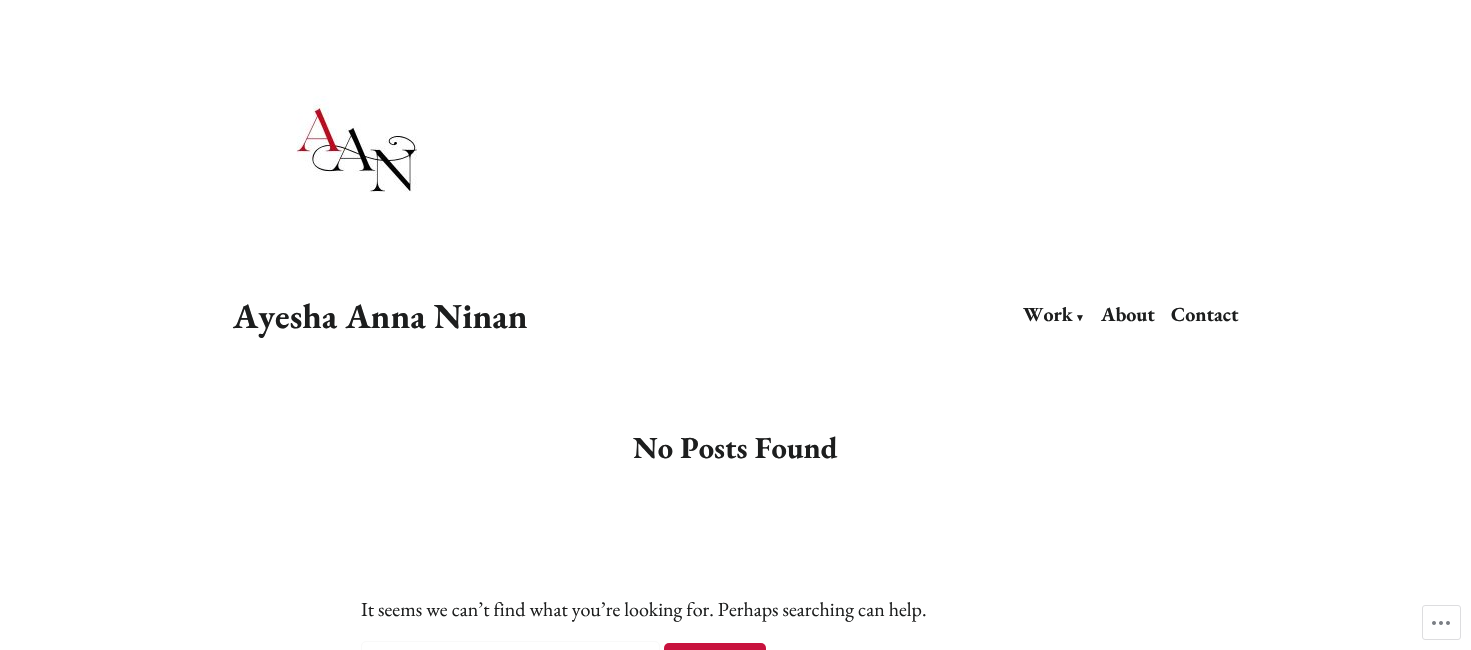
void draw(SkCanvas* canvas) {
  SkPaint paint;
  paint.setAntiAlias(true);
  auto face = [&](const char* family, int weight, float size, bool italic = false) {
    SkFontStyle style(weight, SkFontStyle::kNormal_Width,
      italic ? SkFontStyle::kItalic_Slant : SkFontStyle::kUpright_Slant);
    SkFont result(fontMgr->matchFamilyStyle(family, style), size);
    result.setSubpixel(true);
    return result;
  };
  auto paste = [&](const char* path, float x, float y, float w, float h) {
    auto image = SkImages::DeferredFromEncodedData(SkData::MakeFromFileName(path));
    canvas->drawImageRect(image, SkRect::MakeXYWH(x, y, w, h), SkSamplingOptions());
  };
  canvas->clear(0xffffffff);
  paste("img/1.png", 296, 96, 121, 96);
  paint.setStroke(true);
  paint.setStrokeWidth(1);
  paint.setColor(0xfff9f9f9);
  canvas->drawRoundRect(SkRect::MakeXYWH(361.5f, 641.5f, 298, 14), 4.5f, 4.5f, paint);
  paint.setStroke(false);
  paint.setColor(0xffc8133e);
  canvas->drawRoundRect(SkRect::MakeXYWH(664, 643, 102, 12), 5, 5, paint);
  paint.setStroke(true);
  paint.setColor(0xffdddddf);
  canvas->drawRoundRect(SkRect::MakeXYWH(1422.5f, 605.5f, 38, 34), 2.5f, 2.5f, paint);
  paste("img/2.png", 1432, 621, 18, 4);
  auto f0 = face("EB Garamond", 700, 35);
  paint.setStroke(false);
  paint.setColor(0xff1d1e1e);
  canvas->drawString("Ayesha Anna Ninan", 233, 328, f0, paint);
  auto f1 = face("EB Garamond", 700, 20);
  canvas->drawString("Work", 1023, 321, f1, paint);
  auto f2 = face("Liberation Serif", 700, 10);
  canvas->drawString("▼", 1075, 321, f2, paint);
  canvas->drawString("About", 1101, 321, f1, paint);
  canvas->drawString("Contact", 1171, 321, f1, paint);
  auto f3 = face("EB Garamond", 700, 30.5f);
  canvas->drawString("No Posts Found", 633, 458, f3, paint);
  auto f4 = face("EB Garamond", 400, 20);
  canvas->drawString("It seems we can’t find what you’re looking for. Perhaps searching can help.", 361, 616, f4, paint);
}
